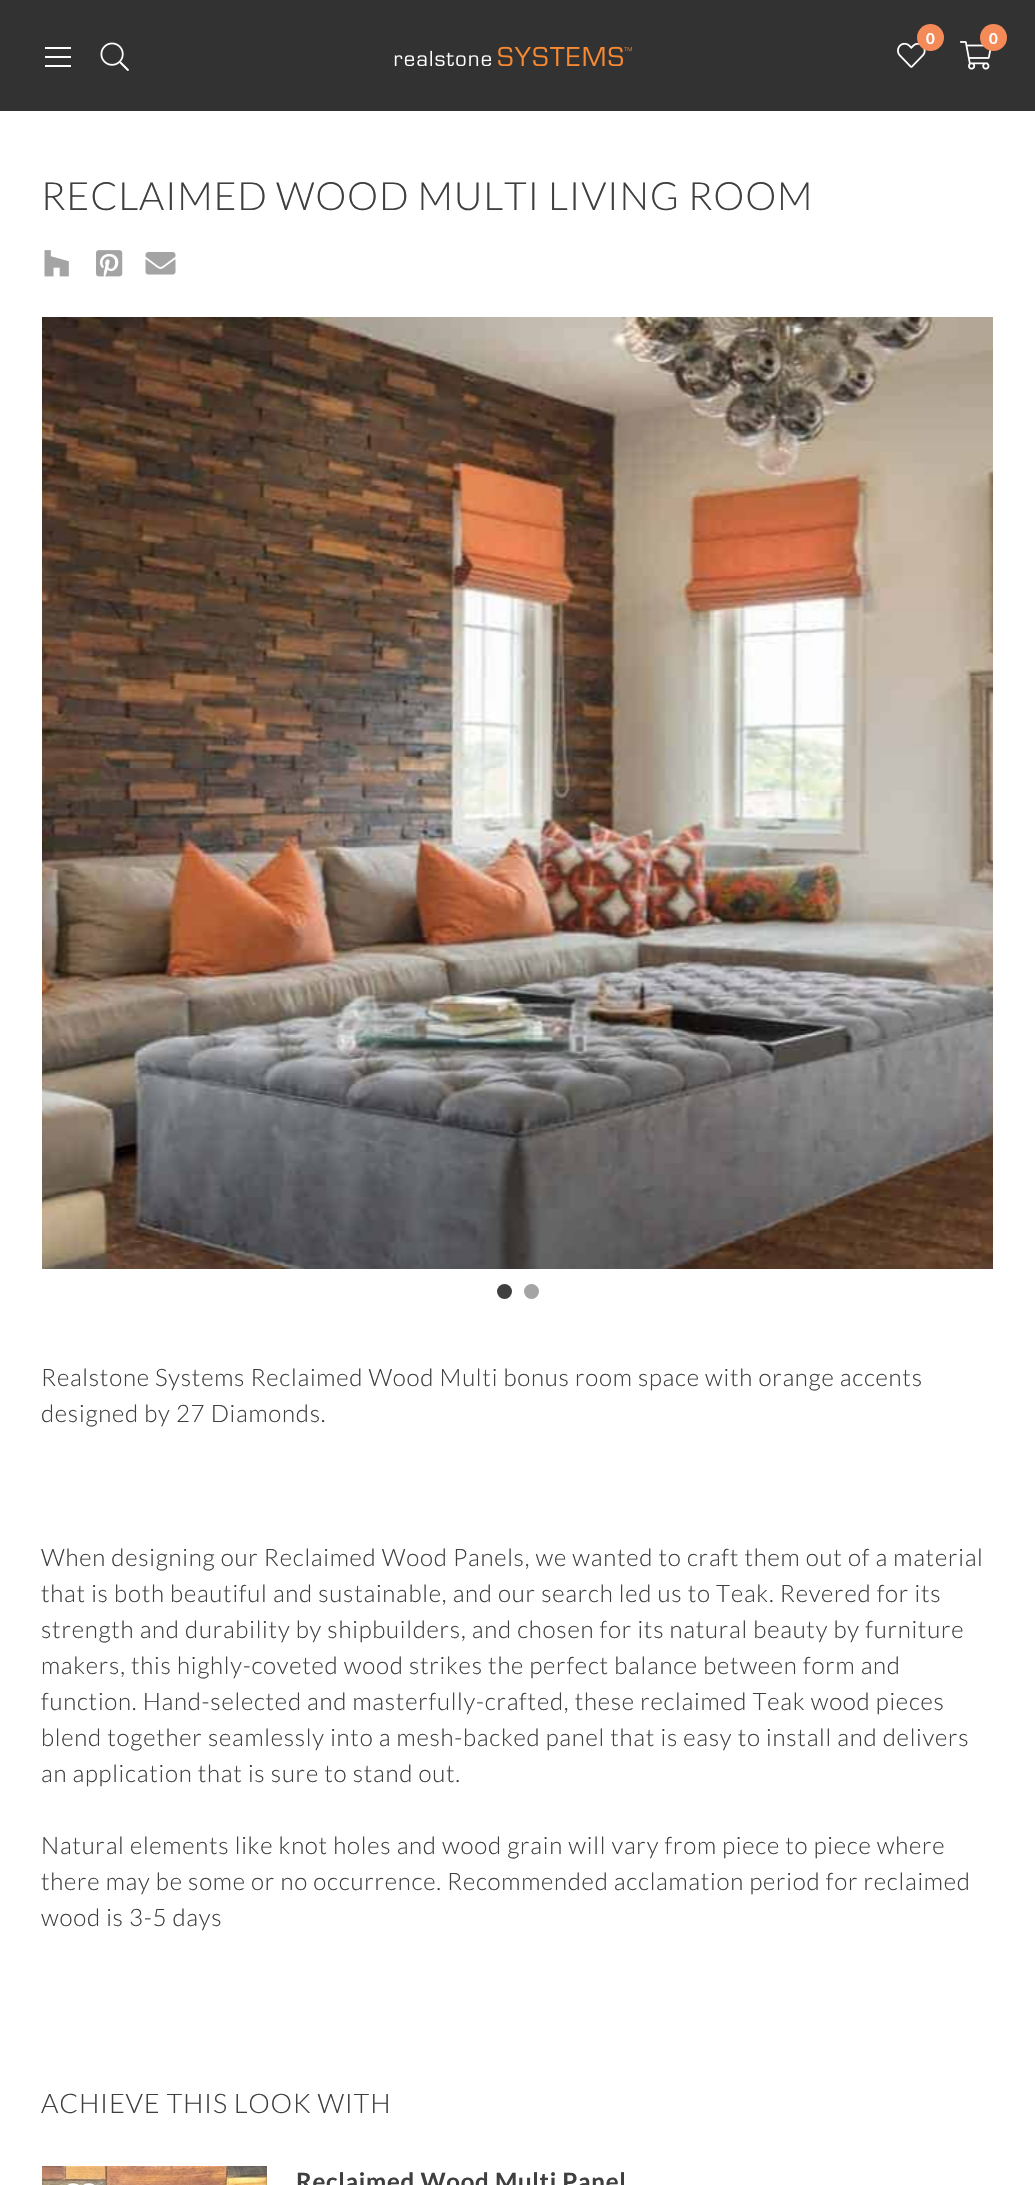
void draw(SkCanvas* canvas) {
  SkPaint paint;
  paint.setAntiAlias(true);
  auto face = [&](const char* family, int weight, float size, bool italic = false) {
    SkFontStyle style(weight, SkFontStyle::kNormal_Width,
      italic ? SkFontStyle::kItalic_Slant : SkFontStyle::kUpright_Slant);
    SkFont result(fontMgr->matchFamilyStyle(family, style), size);
    result.setSubpixel(true);
    return result;
  };
  auto writeSpaced = [&](const char* s, float x, float y, const SkFont& font, const SkPaint& ink, float letter, float word) {
    std::vector<SkGlyphID> glyphs(font.countText(s, strlen(s), SkTextEncoding::kUTF8));
    std::vector<float> xs(glyphs.size());
    font.textToGlyphs(s, strlen(s), SkTextEncoding::kUTF8, glyphs);
    font.getXPos(glyphs, xs, x);
    float extra = 0;
    for (size_t i = 0; i < glyphs.size(); i++) {
      xs[i] += extra;
      extra += letter + word * (glyphs[i] == font.unicharToGlyph(' '));
    }
    canvas->drawTextBlob(SkTextBlob::MakeFromPosHGlyphs(glyphs, xs, y, font), 0, 0, ink);
  };
  auto paste = [&](const char* path, float x, float y, float w, float h) {
    auto image = SkImages::DeferredFromEncodedData(SkData::MakeFromFileName(path));
    canvas->drawImageRect(image, SkRect::MakeXYWH(x, y, w, h), SkSamplingOptions());
  };
  canvas->clear(0xffffffff);
  paint.setColor(0xff323232);
  canvas->drawRect(SkRect::MakeXYWH(0, 0, 1035, 111), paint);
  paste("img/1.png", 897, 42, 29, 26);
  paint.setColor(0xfff58a59);
  canvas->drawCircle(930.5f, 37.5f, 13.5f, paint);
  paste("img/2.png", 960, 41, 32, 29);
  canvas->drawCircle(993.5f, 37.5f, 13.5f, paint);
  {
    const struct { float x, y, w, h; SkColor color; } items[] = {
      {45, 56, 26, 2, 0xffffffff},
      {45, 47, 26, 2, 0xffffffff},
      {45, 65, 26, 2, 0xffffffff},
    };
    for (auto [x, y, w, h, color] : items) {
      paint.setColor(color);
      canvas->drawRect(SkRect::MakeXYWH(x, y, w, h), paint);
    }
  }
  paste("img/3.png", 100, 42, 29, 29);
  paste("img/4.png", 394, 46, 238, 20);
  paste("img/5.png", 44, 250, 25, 27);
  paste("img/6.png", 96, 250, 27, 27);
  paste("img/7.png", 145, 252, 31, 23);
  paste("img/8.png", 42, 317, 951, 952);
  paint.setColor(0xff3f3f3f);
  canvas->drawCircle(504.5f, 1291.5f, 7.5f, paint);
  paint.setColor(0xffa4a4a4);
  canvas->drawCircle(531.5f, 1291.5f, 7.5f, paint);
  paste("img/9.png", 42, 2166, 225, 19);
  paste("img/10.png", 67, 2183, 28, 2);
  auto f0 = face("Lato", 700, 15);
  paint.setColor(0xffffffff);
  writeSpaced("0", 926, 44, f0, paint, 0.75f, 0);
  writeSpaced("0", 989, 44, f0, paint, 0.75f, 0);
  auto f1 = face("Lato", 300, 39);
  paint.setColor(0xff3f3f3f);
  writeSpaced("RECLAIMED WOOD MULTI LIVING ROOM", 41, 210, f1, paint, 0.75f, 0);
  auto f2 = face("Lato", 300, 24);
  {
    const struct { const char* s; float x, y; } items[] = {
      {"Realstone Systems Reclaimed Wood Multi bonus room space with orange accents", 41, 1386},
      {"designed by 27 Diamonds.", 41, 1422},
      {"When designing our Reclaimed Wood Panels, we wanted to craft them out of a material", 41, 1566},
      {"that is both beautiful and sustainable, and our search led us to Teak. Revered for its", 41, 1602},
      {"strength and durability by shipbuilders, and chosen for its natural beauty by furniture", 41, 1638},
      {"makers, this highly-coveted wood strikes the perfect balance between form and", 41, 1674},
      {"function. Hand-selected and masterfully-crafted, these reclaimed Teak wood pieces", 41, 1710},
      {"blend together seamlessly into a mesh-backed panel that is easy to install and delivers", 41, 1746},
      {"an application that is sure to stand out.", 41, 1782},
      {"Natural elements like knot holes and wood grain will vary from piece to piece where", 41, 1854},
      {"there may be some or no occurrence. Recommended acclamation period for reclaimed", 41, 1890},
      {"wood is 3-5 days", 41, 1926},
    };
    for (auto [s, x, y] : items) {
      writeSpaced(s, x, y, f2, paint, 0.75f, 0);
    }
  }
  auto f3 = face("Lato", 300, 27);
  writeSpaced("ACHIEVE THIS LOOK WITH", 41, 2113, f3, paint, 0.75f, 0);
  auto f4 = face("Lato", 700, 24);
  writeSpaced("Reclaimed Wood Multi Panel", 296, 2190, f4, paint, 0.75f, 0);
}
